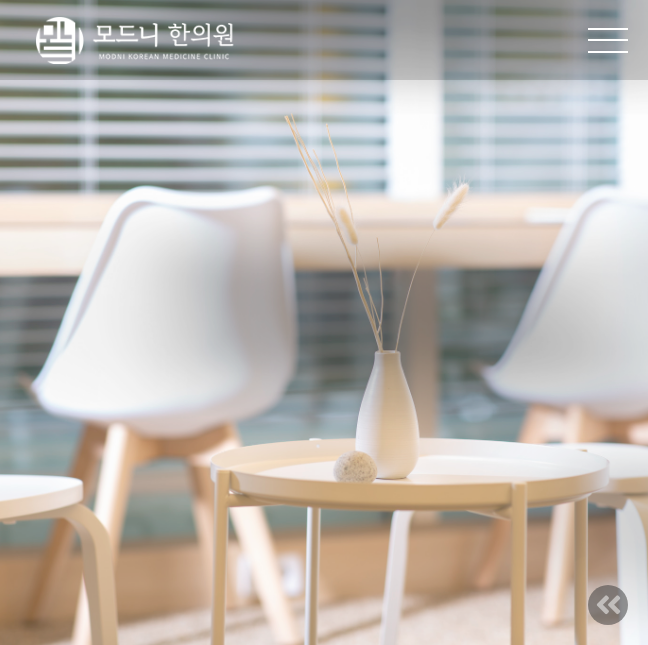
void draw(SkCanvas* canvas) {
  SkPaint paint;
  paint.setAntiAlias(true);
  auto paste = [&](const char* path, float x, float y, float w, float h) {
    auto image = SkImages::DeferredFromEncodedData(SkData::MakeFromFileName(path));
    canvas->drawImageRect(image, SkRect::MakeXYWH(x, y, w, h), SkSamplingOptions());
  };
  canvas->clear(0xffffffff);
  paste("img/1.png", 0, 0, 648, 645);
  paint.setColor(0x26000000);
  canvas->drawRect(SkRect::MakeXYWH(0, 0, 648, 80), paint);
  paste("img/2.png", 36, 17, 198, 47);
  {
    const struct { float x, y, w, h; SkColor color; } items[] = {
      {588, 28, 40, 2, 0xffffffff},
      {588, 39, 40, 2, 0xffffffff},
      {588, 51, 40, 2, 0xffffffff},
    };
    for (auto [x, y, w, h, color] : items) {
      paint.setColor(color);
      canvas->drawRect(SkRect::MakeXYWH(x, y, w, h), paint);
    }
  }
  paint.setColor(0x80333333);
  canvas->drawCircle(608, 605, 20, paint);
  paste("img/3.png", 596, 595, 25, 20);
}
